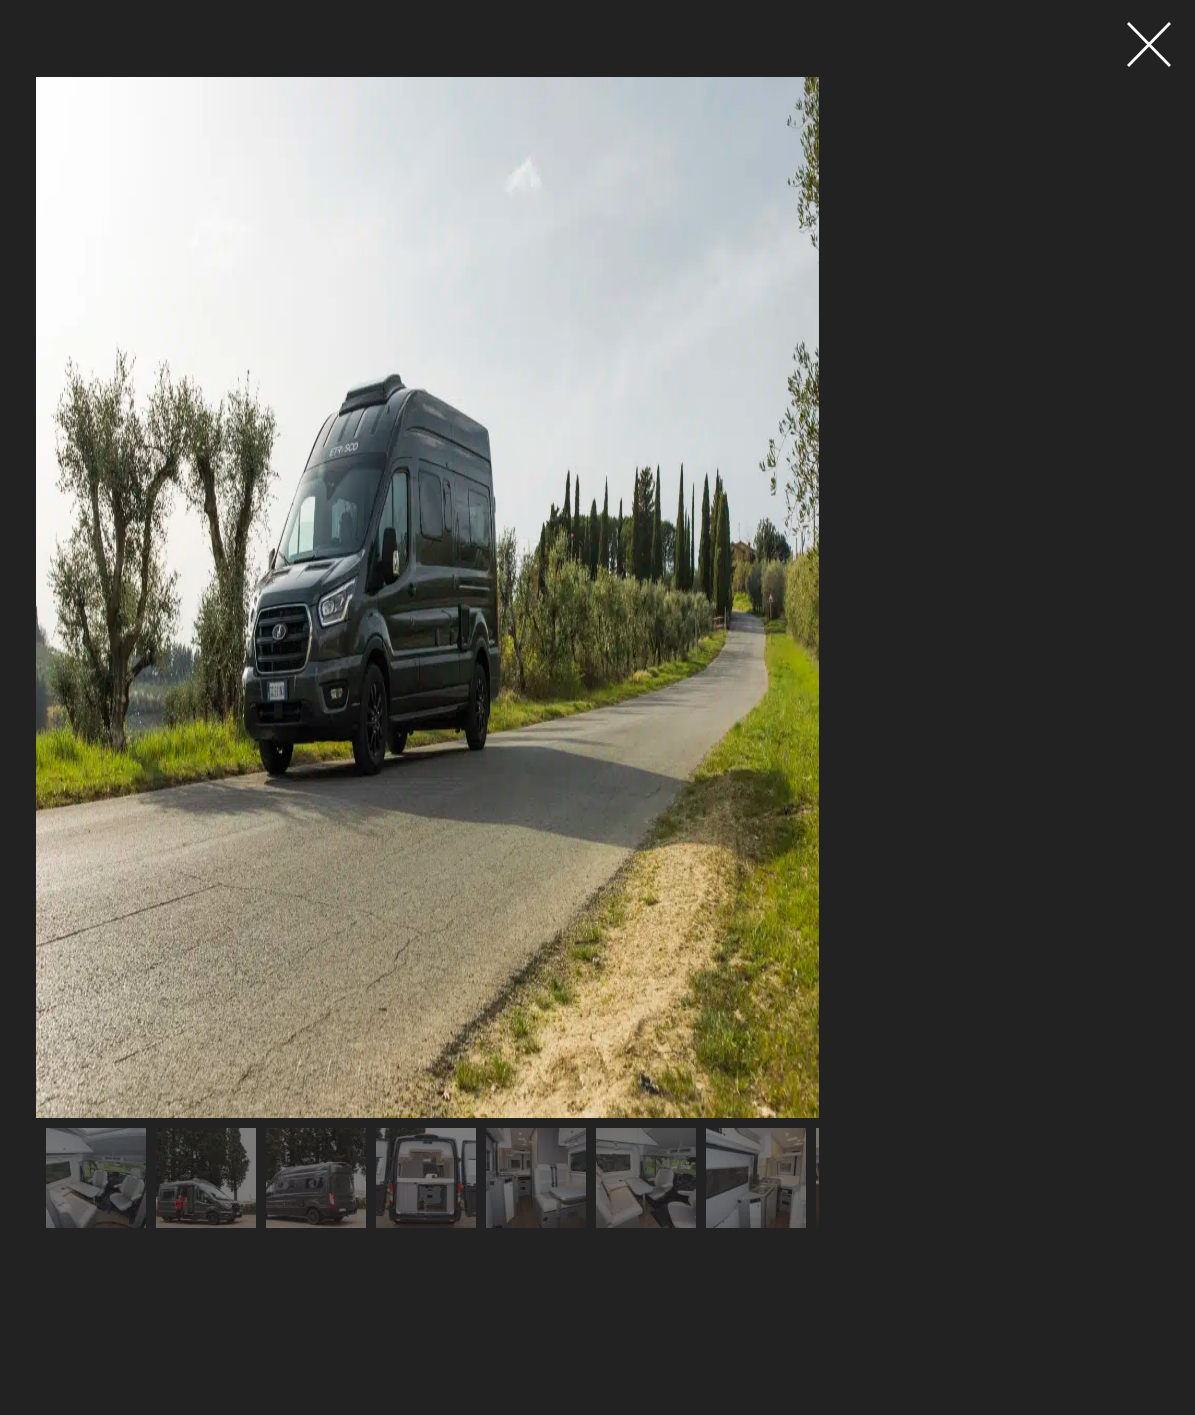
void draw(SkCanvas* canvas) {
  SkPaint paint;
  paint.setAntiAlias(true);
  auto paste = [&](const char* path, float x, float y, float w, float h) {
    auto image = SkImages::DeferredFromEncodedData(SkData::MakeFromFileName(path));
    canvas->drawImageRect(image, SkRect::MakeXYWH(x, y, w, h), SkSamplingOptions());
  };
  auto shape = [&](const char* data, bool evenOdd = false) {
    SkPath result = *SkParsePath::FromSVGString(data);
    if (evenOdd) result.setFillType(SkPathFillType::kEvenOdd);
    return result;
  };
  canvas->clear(0xff222222);
  paint.setColor(0xffffffff);
  canvas->drawPath(shape("M1129 22L1171 65L1169 67L1127 24Z"), paint);
  canvas->drawPath(shape("M1127 65L1169 22L1171 24L1129 67Z"), paint);
  paste("img/1.png", 36, 77, 783, 1041);
  paste("img/2.png", 46, 1128, 100, 100);
  paste("img/3.png", 156, 1128, 100, 100);
  paste("img/4.png", 266, 1128, 100, 100);
  paste("img/5.png", 376, 1128, 100, 100);
  paste("img/6.png", 486, 1128, 100, 100);
  paste("img/7.png", 596, 1128, 100, 100);
  paste("img/8.png", 706, 1128, 100, 100);
  paste("img/9.png", 816, 1128, 3, 100);
}
